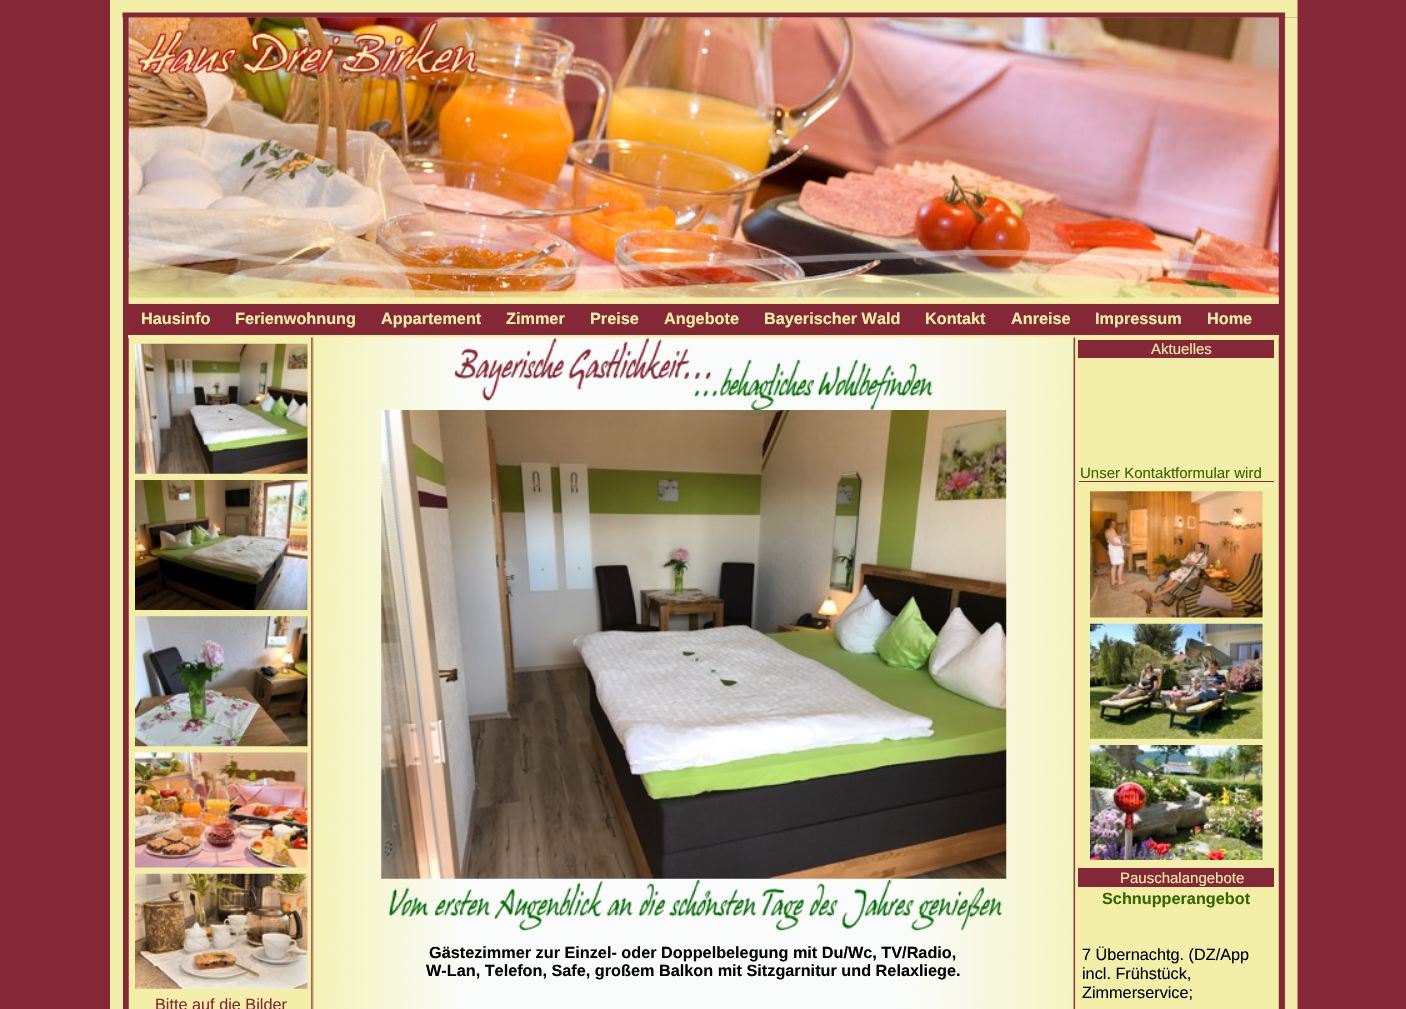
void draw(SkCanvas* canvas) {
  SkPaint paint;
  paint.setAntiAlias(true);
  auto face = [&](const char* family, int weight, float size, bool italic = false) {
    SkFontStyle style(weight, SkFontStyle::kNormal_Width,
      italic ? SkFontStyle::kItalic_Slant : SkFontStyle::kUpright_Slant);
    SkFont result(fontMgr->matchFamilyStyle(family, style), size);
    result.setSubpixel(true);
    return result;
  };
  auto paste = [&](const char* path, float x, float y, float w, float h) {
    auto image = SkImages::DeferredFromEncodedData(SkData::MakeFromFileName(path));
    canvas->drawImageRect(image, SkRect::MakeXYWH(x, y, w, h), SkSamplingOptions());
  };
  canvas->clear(0xff842837);
  paint.setColor(0xfff3efa8);
  canvas->drawRect(SkRect::MakeXYWH(110, 17, 13, 992), paint);
  paste("img/2.png", 128, 17, 1151, 287);
  paste("img/4.png", 1278, 17, 20, 992);
  paste("img/1.png", 110, 0, 1188, 18);
  paste("img/3.png", 128, 17, 1151, 287);
  canvas->drawRect(SkRect::MakeXYWH(128, 335, 1151, 3), paint);
  paste("img/13.png", 128, 337, 186, 672);
  paste("img/5.png", 313, 337, 761, 672);
  paste("img/6.png", 454, 337, 479, 73);
  paste("img/7.png", 381, 410, 626, 469);
  paste("img/8.png", 388, 878, 615, 54);
  paste("img/9.png", 1073, 337, 206, 672);
  paint.setColor(0xff842837);
  canvas->drawRect(SkRect::MakeXYWH(1078, 340, 196, 18), paint);
  canvas->drawRect(SkRect::MakeXYWH(1079, 481, 195, 1), paint);
  paste("img/10.png", 1090, 491, 173, 127);
  paste("img/11.png", 1090, 623, 173, 116);
  paste("img/12.png", 1090, 745, 173, 115);
  canvas->drawRect(SkRect::MakeXYWH(1078, 868, 196, 19), paint);
  paste("img/14.png", 135, 343, 173, 131);
  paste("img/15.png", 135, 480, 173, 130);
  paste("img/16.png", 135, 616, 173, 131);
  paste("img/17.png", 135, 752, 173, 116);
  paste("img/18.png", 135, 873, 173, 116);
  auto f0 = face("Liberation Sans", 700, 16.25f);
  paint.setColor(0xfff3efa8);
  {
    const struct { const char* s; float x, y; } items[] = {
      {"Hausinfo", 141, 324},
      {"Ferienwohnung", 235, 324},
      {"Appartement", 381, 324},
      {"Zimmer", 506, 324},
      {"Preise", 590, 324},
      {"Angebote", 664, 324},
      {"Bayerischer Wald", 764, 324},
      {"Kontakt", 925, 324},
      {"Anreise", 1011, 324},
      {"Impressum", 1095, 324},
      {"Home", 1207, 324},
    };
    for (auto [s, x, y] : items) {
      canvas->drawString(s, x, y, f0, paint);
    }
  }
  paint.setColor(0xff000000);
  canvas->drawString("Gästezimmer zur Einzel- oder Doppelbelegung mit Du/Wc, TV/Radio,", 429, 958, f0, paint);
  canvas->drawString("W-Lan, Telefon, Safe, großem Balkon mit Sitzgarnitur und Relaxliege.", 426, 976, f0, paint);
  auto f1 = face("Liberation Sans", 400, 15);
  paint.setColor(0xfff3efa8);
  canvas->drawString("Aktuelles", 1151, 354, f1, paint);
  paint.setColor(0xff336600);
  canvas->drawString("Unser Kontaktformular wird", 1080, 478, f1, paint);
  paint.setColor(0xfff3efa8);
  canvas->drawString("Pauschalangebote", 1120, 883, f1, paint);
  paint.setColor(0xff336600);
  canvas->drawString("Schnupperangebot", 1102, 904, f0, paint);
  auto f2 = face("Liberation Sans", 400, 16.25f);
  paint.setColor(0xff000000);
  {
    const struct { const char* s; float x, y; } items[] = {
      {"7 Übernachtg. (DZ/App", 1082, 960},
      {"incl. Frühstück,", 1082, 979},
      {"Zimmerservice;", 1082, 998},
    };
    for (auto [s, x, y] : items) {
      canvas->drawString(s, x, y, f2, paint);
    }
  }
  paint.setColor(0xff842837);
  canvas->drawString("Bitte auf die Bilder", 155, 1010, f2, paint);
}
